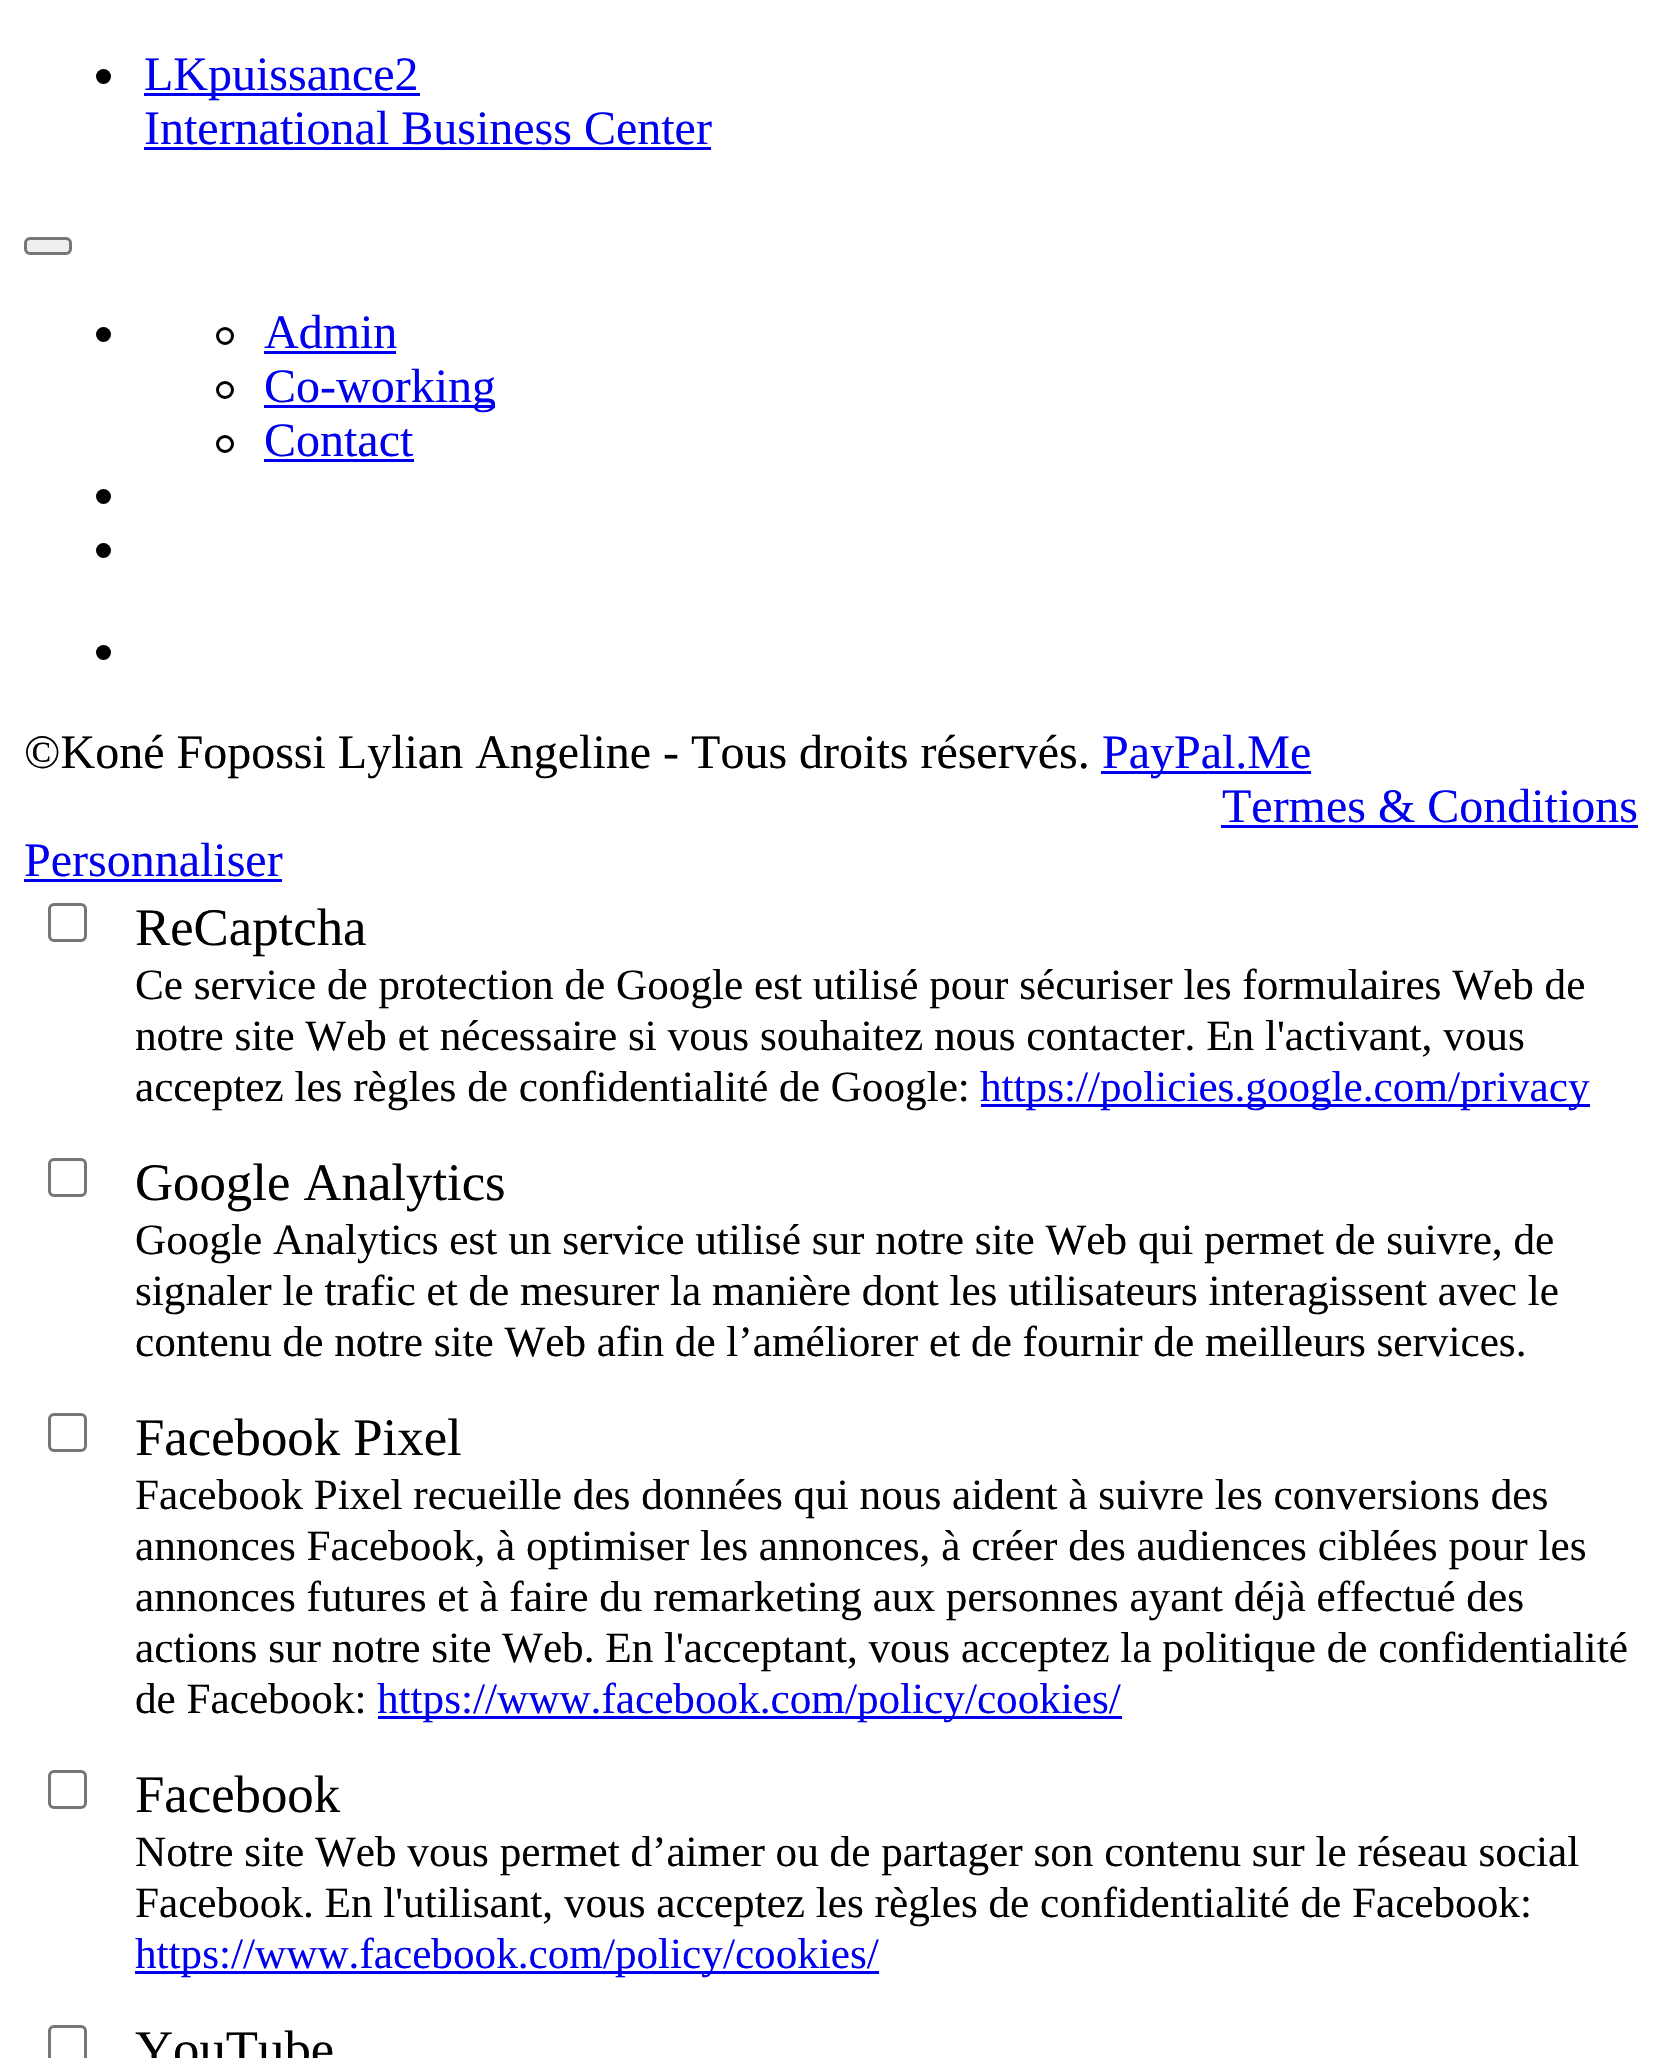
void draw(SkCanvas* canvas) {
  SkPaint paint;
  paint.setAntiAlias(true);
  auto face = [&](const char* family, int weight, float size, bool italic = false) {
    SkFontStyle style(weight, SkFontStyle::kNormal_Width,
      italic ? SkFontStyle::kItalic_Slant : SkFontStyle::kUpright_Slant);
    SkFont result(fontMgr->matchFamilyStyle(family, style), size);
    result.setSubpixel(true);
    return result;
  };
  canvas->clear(0xffffffff);
  paint.setColor(0xff000000);
  canvas->drawCircle(103.5f, 76.5f, 7.5f, paint);
  paint.setColor(0xff0000ee);
  canvas->drawRect(SkRect::MakeXYWH(144, 93, 276, 3), paint);
  canvas->drawRect(SkRect::MakeXYWH(144, 147, 567, 3), paint);
  paint.setColor(0xffefefef);
  canvas->drawRoundRect(SkRect::MakeXYWH(25.5f, 238.5f, 45, 15), 4.5f, 4.5f, paint);
  paint.setStroke(true);
  paint.setStrokeWidth(3);
  paint.setColor(0xff767676);
  canvas->drawRoundRect(SkRect::MakeXYWH(25.5f, 238.5f, 45, 15), 4.5f, 4.5f, paint);
  paint.setStroke(false);
  paint.setColor(0xff000000);
  canvas->drawCircle(103.5f, 334.5f, 7.5f, paint);
  paint.setStroke(true);
  canvas->drawCircle(225, 336, 7.5f, paint);
  paint.setStroke(false);
  paint.setColor(0xff0000ee);
  canvas->drawRect(SkRect::MakeXYWH(264, 351, 132, 3), paint);
  paint.setStroke(true);
  paint.setColor(0xff000000);
  canvas->drawCircle(225, 390, 7.5f, paint);
  paint.setStroke(false);
  paint.setColor(0xff0000ee);
  canvas->drawRect(SkRect::MakeXYWH(264, 405, 231, 3), paint);
  paint.setStroke(true);
  paint.setColor(0xff000000);
  canvas->drawCircle(225, 444, 7.5f, paint);
  paint.setStroke(false);
  paint.setColor(0xff0000ee);
  canvas->drawRect(SkRect::MakeXYWH(264, 459, 150, 3), paint);
  paint.setColor(0xff000000);
  canvas->drawCircle(103.5f, 496.5f, 7.5f, paint);
  canvas->drawCircle(103.5f, 550.5f, 7.5f, paint);
  canvas->drawCircle(103.5f, 652.5f, 7.5f, paint);
  {
    const struct { float x, y, w, h; SkColor color; } items[] = {
      {1101, 771, 210, 3, 0xff0000ee},
      {1221, 825, 417, 3, 0xff0000ee},
      {24, 879, 258, 3, 0xff0000ee},
    };
    for (auto [x, y, w, h, color] : items) {
      paint.setColor(color);
      canvas->drawRect(SkRect::MakeXYWH(x, y, w, h), paint);
    }
  }
  paint.setStroke(true);
  paint.setColor(0xff767676);
  canvas->drawRoundRect(SkRect::MakeXYWH(49.5f, 904.5f, 36, 36), 4.5f, 4.5f, paint);
  paint.setStroke(false);
  paint.setColor(0xff0000ee);
  canvas->drawRect(SkRect::MakeXYWH(981, 1104, 609, 3), paint);
  paint.setStroke(true);
  paint.setColor(0xff767676);
  canvas->drawRoundRect(SkRect::MakeXYWH(49.5f, 1159.5f, 36, 36), 4.5f, 4.5f, paint);
  canvas->drawRoundRect(SkRect::MakeXYWH(49.5f, 1414.5f, 36, 36), 4.5f, 4.5f, paint);
  paint.setStroke(false);
  paint.setColor(0xff0000ee);
  canvas->drawRect(SkRect::MakeXYWH(378, 1716, 744, 3), paint);
  paint.setStroke(true);
  paint.setColor(0xff767676);
  canvas->drawRoundRect(SkRect::MakeXYWH(49.5f, 1771.5f, 36, 36), 4.5f, 4.5f, paint);
  paint.setStroke(false);
  paint.setColor(0xff0000ee);
  canvas->drawRect(SkRect::MakeXYWH(135, 1971, 744, 3), paint);
  paint.setStroke(true);
  paint.setColor(0xff767676);
  canvas->drawRoundRect(SkRect::MakeXYWH(49.5f, 2026.5f, 36, 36), 4.5f, 4.5f, paint);
  auto f0 = face("Liberation Serif", 400, 48);
  paint.setStroke(false);
  paint.setColor(0xff0000ee);
  {
    const struct { const char* s; float x, y; } items[] = {
      {"LKpuissance2", 144, 90},
      {"International Business Center", 144, 144},
      {"Admin", 264, 348},
      {"Co-working", 264, 402},
      {"Contact", 264, 456},
    };
    for (auto [s, x, y] : items) {
      canvas->drawString(s, x, y, f0, paint);
    }
  }
  paint.setColor(0xff000000);
  canvas->drawString("©Koné Fopossi Lylian Angeline - Tous droits réservés.", 24, 768, f0, paint);
  paint.setColor(0xff0000ee);
  {
    const struct { const char* s; float x, y; } items[] = {
      {"PayPal.Me", 1102, 768},
      {"Termes & Conditions", 1222, 822},
      {"Personnaliser", 24, 876},
    };
    for (auto [s, x, y] : items) {
      canvas->drawString(s, x, y, f0, paint);
    }
  }
  auto f1 = face("Liberation Serif", 400, 52.75f);
  paint.setColor(0xff000000);
  canvas->drawString("ReCaptcha", 135, 945, f1, paint);
  auto f2 = face("Liberation Serif", 400, 43.2f);
  {
    const struct { const char* s; float x, y; } items[] = {
      {"Ce service de protection de Google est utilisé pour sécuriser les formulaires Web de", 135, 999},
      {"notre site Web et nécessaire si vous souhaitez nous contacter. En l'activant, vous", 135, 1050},
      {"acceptez les règles de confidentialité de Google:", 135, 1101},
    };
    for (auto [s, x, y] : items) {
      canvas->drawString(s, x, y, f2, paint);
    }
  }
  paint.setColor(0xff0000ee);
  canvas->drawString("https://policies.google.com/privacy", 980, 1101, f2, paint);
  paint.setColor(0xff000000);
  canvas->drawString("Google Analytics", 135, 1200, f1, paint);
  {
    const struct { const char* s; float x, y; } items[] = {
      {"Google Analytics est un service utilisé sur notre site Web qui permet de suivre, de", 135, 1254},
      {"signaler le trafic et de mesurer la manière dont les utilisateurs interagissent avec le", 135, 1305},
      {"contenu de notre site Web afin de l’améliorer et de fournir de meilleurs services.", 135, 1356},
    };
    for (auto [s, x, y] : items) {
      canvas->drawString(s, x, y, f2, paint);
    }
  }
  canvas->drawString("Facebook Pixel", 135, 1455, f1, paint);
  {
    const struct { const char* s; float x, y; } items[] = {
      {"Facebook Pixel recueille des données qui nous aident à suivre les conversions des", 135, 1509},
      {"annonces Facebook, à optimiser les annonces, à créer des audiences ciblées pour les", 135, 1560},
      {"annonces futures et à faire du remarketing aux personnes ayant déjà effectué des", 135, 1611},
      {"actions sur notre site Web. En l'acceptant, vous acceptez la politique de confidentialité", 135, 1662},
      {"de Facebook:", 135, 1713},
    };
    for (auto [s, x, y] : items) {
      canvas->drawString(s, x, y, f2, paint);
    }
  }
  paint.setColor(0xff0000ee);
  canvas->drawString("https://www.facebook.com/policy/cookies/", 377, 1713, f2, paint);
  paint.setColor(0xff000000);
  canvas->drawString("Facebook", 135, 1812, f1, paint);
  canvas->drawString("Notre site Web vous permet d’aimer ou de partager son contenu sur le réseau social", 135, 1866, f2, paint);
  canvas->drawString("Facebook. En l'utilisant, vous acceptez les règles de confidentialité de Facebook:", 135, 1917, f2, paint);
  paint.setColor(0xff0000ee);
  canvas->drawString("https://www.facebook.com/policy/cookies/", 135, 1968, f2, paint);
  paint.setColor(0xff000000);
  canvas->drawString("YouTube", 135, 2067, f1, paint);
}
